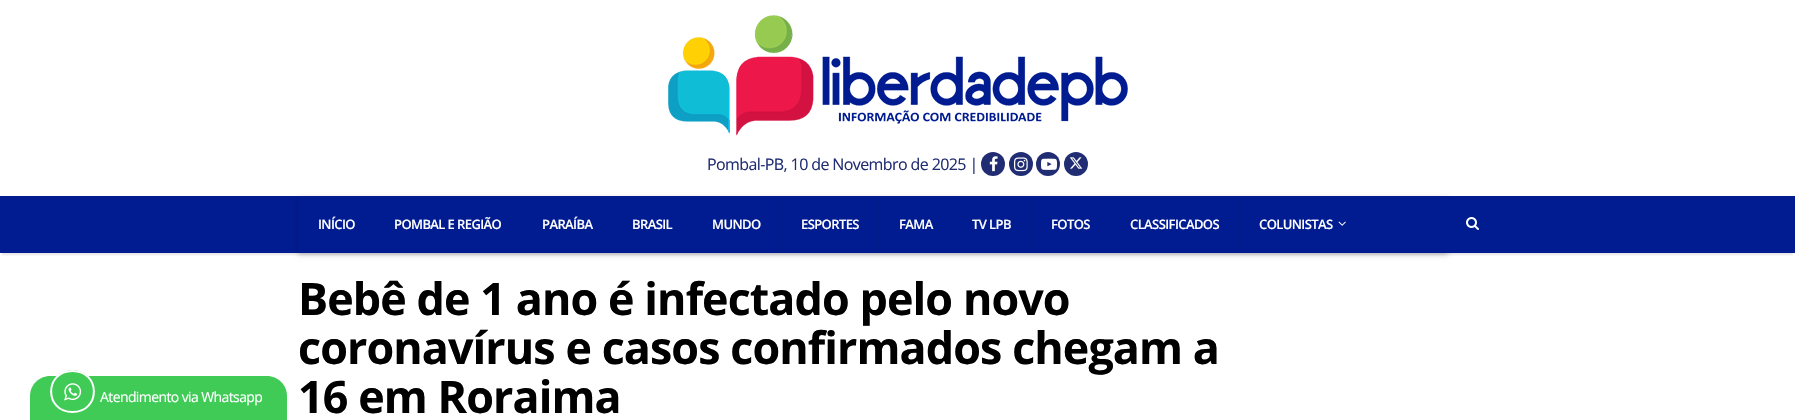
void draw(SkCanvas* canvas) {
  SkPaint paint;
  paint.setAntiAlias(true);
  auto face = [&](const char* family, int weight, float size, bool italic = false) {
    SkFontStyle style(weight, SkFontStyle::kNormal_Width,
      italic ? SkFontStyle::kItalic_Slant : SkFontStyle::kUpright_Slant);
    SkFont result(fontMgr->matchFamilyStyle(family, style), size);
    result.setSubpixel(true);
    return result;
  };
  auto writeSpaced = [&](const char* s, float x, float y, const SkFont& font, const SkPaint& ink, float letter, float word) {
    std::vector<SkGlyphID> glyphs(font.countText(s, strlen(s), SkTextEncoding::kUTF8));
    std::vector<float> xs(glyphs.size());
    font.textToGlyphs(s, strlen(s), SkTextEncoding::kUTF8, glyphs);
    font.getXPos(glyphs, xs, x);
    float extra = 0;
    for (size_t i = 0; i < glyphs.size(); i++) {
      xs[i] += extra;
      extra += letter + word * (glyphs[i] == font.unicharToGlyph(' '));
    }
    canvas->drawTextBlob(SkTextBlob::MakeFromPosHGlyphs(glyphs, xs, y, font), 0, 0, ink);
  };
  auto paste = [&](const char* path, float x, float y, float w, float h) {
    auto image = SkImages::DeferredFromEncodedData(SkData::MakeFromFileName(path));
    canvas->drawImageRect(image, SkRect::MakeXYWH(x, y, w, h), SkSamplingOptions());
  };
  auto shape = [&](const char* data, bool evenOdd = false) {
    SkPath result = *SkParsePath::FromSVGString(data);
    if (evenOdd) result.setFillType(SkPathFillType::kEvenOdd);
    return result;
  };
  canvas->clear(0xffffffff);
  canvas->save();
  canvas->clipRect(SkRect::MakeXYWH(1, 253, 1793, 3));
  paint.setColor(0x1a000000);
  paint.setMaskFilter(SkMaskFilter::MakeBlur(kNormal_SkBlurStyle, 1));
  canvas->drawRect(SkRect::MakeXYWH(2, 6, 1791, 249), paint);
  paint.setMaskFilter(nullptr);
  canvas->restore();
  paste("img/1.png", 668, 15, 460, 121);
  paint.setColor(0xff212d73);
  canvas->drawCircle(993, 164, 12, paint);
  paste("img/2.png", 989, 156, 9, 16);
  canvas->drawCircle(1021, 164, 12, paint);
  paste("img/3.png", 1014, 157, 14, 15);
  canvas->drawCircle(1048, 164, 12, paint);
  paste("img/4.png", 1041, 158, 16, 12);
  canvas->drawCircle(1076, 164, 12, paint);
  paste("img/5.png", 1069, 157, 14, 12);
  paint.setColor(0xff011c90);
  canvas->drawRect(SkRect::MakeXYWH(0, 196, 1795, 57), paint);
  canvas->save();
  canvas->clipPath(shape("M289 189H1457V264H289ZM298 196H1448V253H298Z", true), true);
  paint.setColor(0x33000000);
  paint.setMaskFilter(SkMaskFilter::MakeBlur(kNormal_SkBlurStyle, 2.5f));
  canvas->drawRect(SkRect::MakeXYWH(298, 198, 1150, 57), paint);
  paint.setMaskFilter(nullptr);
  canvas->restore();
  {
    const struct { float x, y, w, h; SkColor color; } items[] = {
      {297, 196, 1, 57, 0x1a042043},
      {373, 196, 1, 57, 0xff011c88},
      {521, 196, 1, 57, 0xff011c88},
      {611, 196, 1, 57, 0xff011c88},
      {691, 196, 1, 57, 0xff011c88},
      {780, 196, 1, 57, 0xff011c88},
      {878, 196, 1, 57, 0xff011c88},
      {951, 196, 1, 57, 0xff011c88},
      {1030, 196, 1, 57, 0xff011c88},
      {1109, 196, 1, 57, 0xff011c88},
      {1238, 196, 1, 57, 0xff011c88},
    };
    for (auto [x, y, w, h, color] : items) {
      paint.setColor(color);
      canvas->drawRect(SkRect::MakeXYWH(x, y, w, h), paint);
    }
  }
  paste("img/6.png", 1338, 221, 8, 5);
  paint.setColor(0xff001c90);
  canvas->drawRect(SkRect::MakeXYWH(1448, 196, 3, 56), paint);
  paste("img/7.png", 1466, 217, 13, 13);
  paint.setColor(0xff3fcb56);
  canvas->drawPath(shape("M50 376H267C278 376 287 385 287 396V420H30V396C30 385 39 376 50 376Z"), paint);
  canvas->drawOval(SkRect::MakeXYWH(50, 370, 45, 43), paint);
  paint.setStroke(true);
  paint.setStrokeWidth(2);
  paint.setColor(0xffffffff);
  canvas->drawPath(shape("M72.5 371C101 371 101 412 72.5 412C44 412 44 371 72.5 371Z"), paint);
  paste("img/8.png", 64, 383, 18, 18);
  auto f0 = face("Open Sans", 400, 16);
  paint.setStroke(false);
  paint.setColor(0xff212d73);
  writeSpaced("Pombal-PB, 10 de Novembro de 2025 |", 707, 170, f0, paint, -0.6f, 0);
  auto f1 = face("Open Sans", 600, 13);
  paint.setColor(0xffffffff);
  {
    const struct { const char* s; float x, y; } items[] = {
      {"INÍCIO", 318, 229},
      {"POMBAL E REGIÃO", 394, 229},
      {"PARAÍBA", 542, 229},
      {"BRASIL", 632, 229},
      {"MUNDO", 712, 229},
      {"ESPORTES", 801, 229},
      {"FAMA", 899, 229},
      {"TV LPB", 972, 229},
      {"FOTOS", 1051, 229},
      {"CLASSIFICADOS", 1130, 229},
      {"COLUNISTAS", 1259, 229},
    };
    for (auto [s, x, y] : items) {
      writeSpaced(s, x, y, f1, paint, -0.6f, 0);
    }
  }
  auto f2 = face("Open Sans", 400, 14);
  writeSpaced("Atendimento via Whatsapp", 100, 402, f2, paint, -0.6f, 0);
  auto f3 = face("Open Sans", 700, 44.8f);
  paint.setColor(0xff000000);
  {
    const struct { const char* s; float x, y; } items[] = {
      {"Bebê de 1 ano é infectado pelo novo", 298, 315},
      {"coronavírus e casos confirmados chegam a", 298, 364},
      {"16 em Roraima", 298, 413},
    };
    for (auto [s, x, y] : items) {
      writeSpaced(s, x, y, f3, paint, -0.9f, 0);
    }
  }
}
